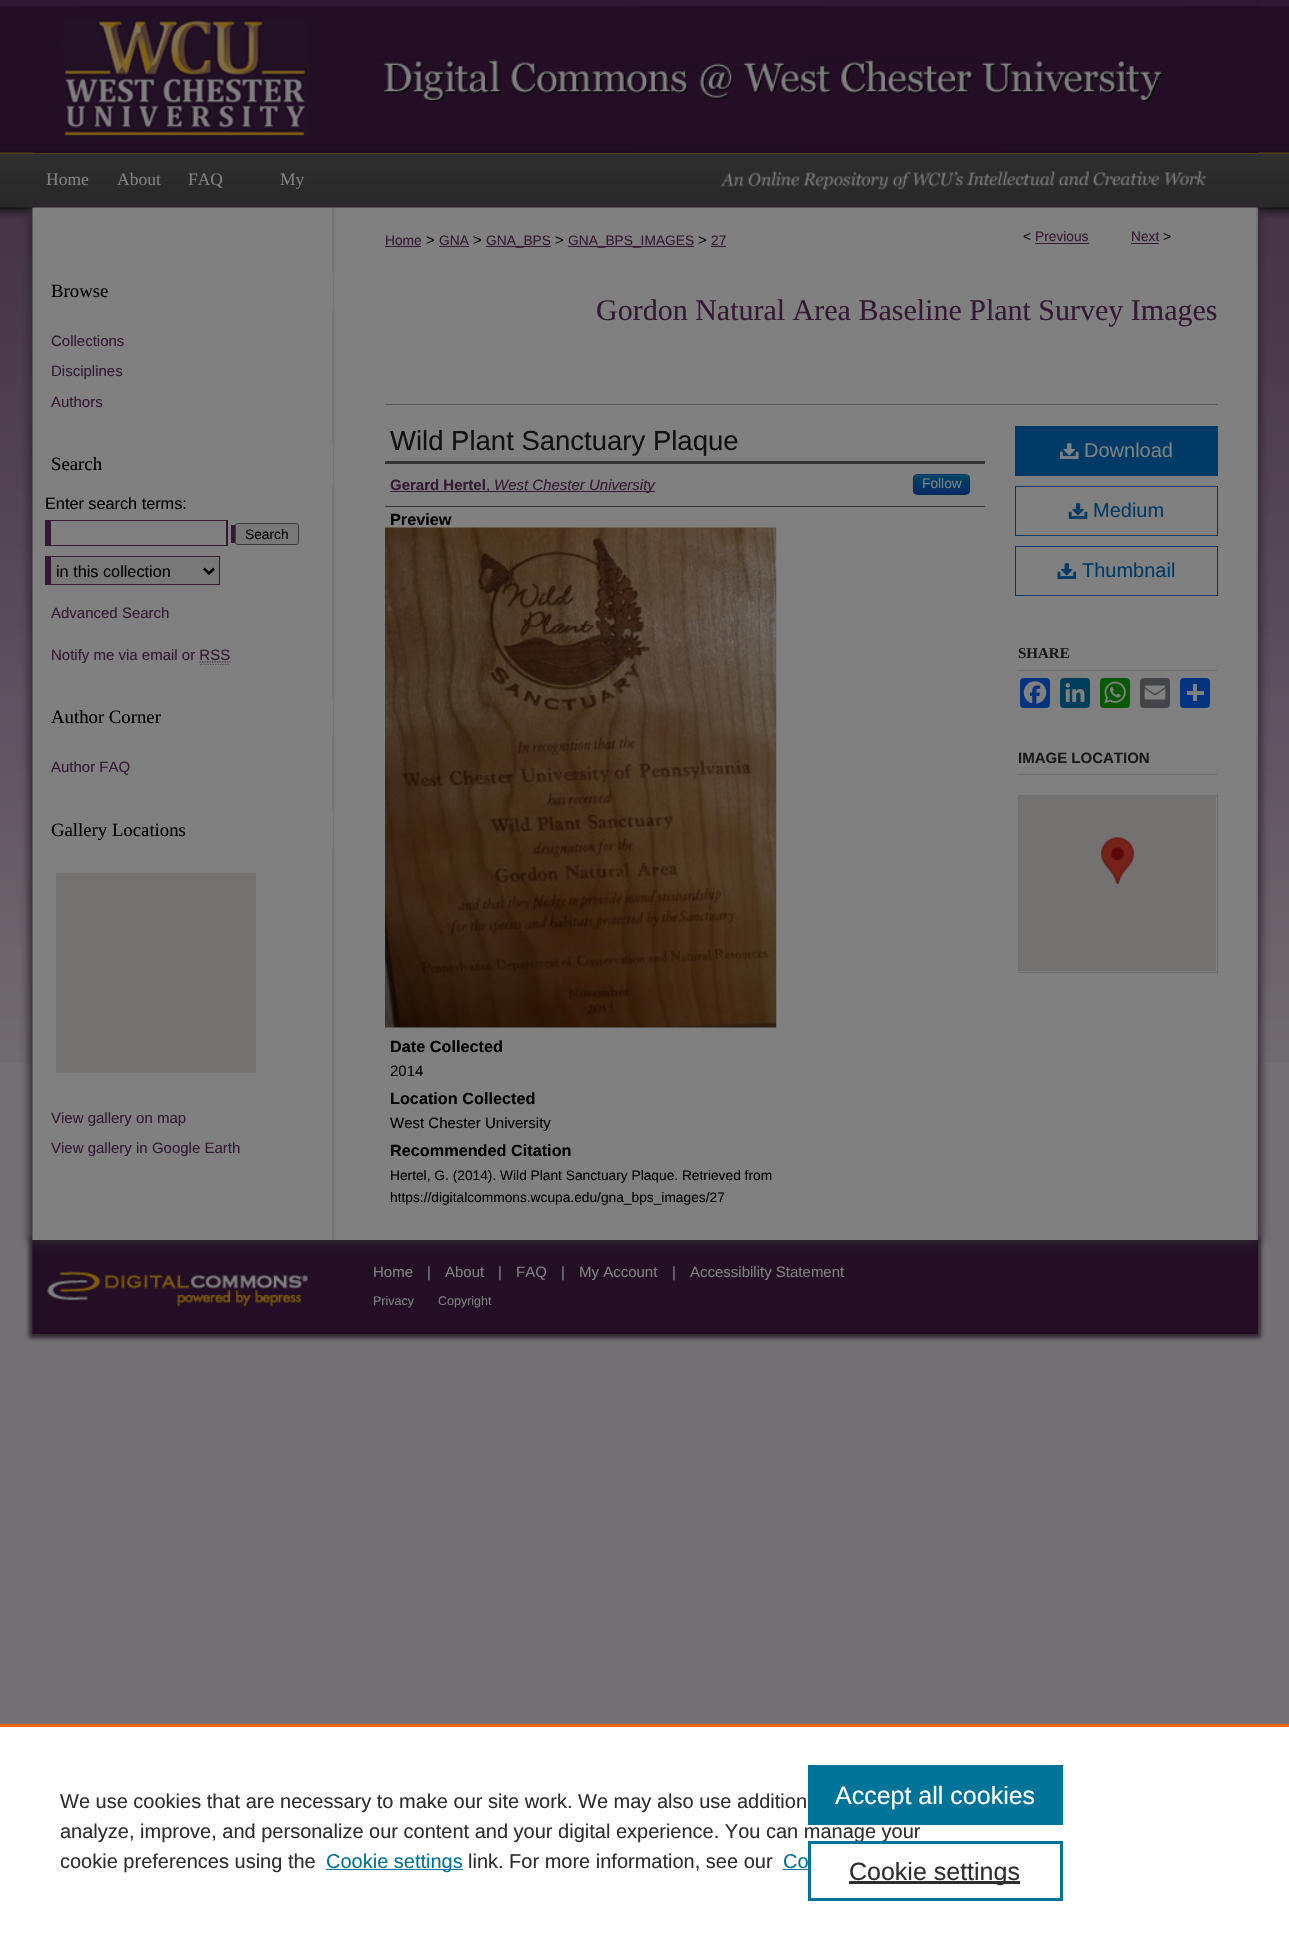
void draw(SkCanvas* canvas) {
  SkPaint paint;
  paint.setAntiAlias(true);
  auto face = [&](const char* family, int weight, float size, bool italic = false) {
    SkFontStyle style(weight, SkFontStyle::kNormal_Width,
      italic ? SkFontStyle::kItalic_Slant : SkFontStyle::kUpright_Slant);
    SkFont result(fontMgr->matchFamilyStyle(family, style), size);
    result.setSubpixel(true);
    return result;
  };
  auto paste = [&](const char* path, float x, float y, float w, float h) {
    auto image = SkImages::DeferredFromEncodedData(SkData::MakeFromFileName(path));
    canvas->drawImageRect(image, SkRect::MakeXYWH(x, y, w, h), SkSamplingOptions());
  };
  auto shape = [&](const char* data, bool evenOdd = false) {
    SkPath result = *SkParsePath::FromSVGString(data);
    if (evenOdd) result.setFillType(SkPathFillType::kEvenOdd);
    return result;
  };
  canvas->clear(0xff736f73);
  paste("img/1.png", 0, 0, 1289, 1063);
  paint.setColor(0xff230e25);
  canvas->drawRect(SkRect::MakeXYWH(33, 0, 1225, 153), paint);
  paste("img/2.png", 32, 0, 301, 153);
  paste("img/3.png", 332, 0, 926, 153);
  paste("img/4.png", 720, 171, 487, 19);
  paint.setColor(0xff322732);
  paint.setMaskFilter(SkMaskFilter::MakeBlur(kNormal_SkBlurStyle, 2));
  canvas->drawRect(SkRect::MakeXYWH(29, 1236, 1232, 102), paint);
  paint.setMaskFilter(nullptr);
  paint.setColor(0xff230e25);
  canvas->drawRect(SkRect::MakeXYWH(33, 1240, 1225, 94), paint);
  paste("img/15.png", 32, 1240, 276, 94);
  paint.setColor(0xff322732);
  paint.setMaskFilter(SkMaskFilter::MakeBlur(kNormal_SkBlurStyle, 5));
  canvas->drawRect(SkRect::MakeXYWH(30, 208, 1225, 1032), paint);
  paint.setMaskFilter(nullptr);
  paint.setMaskFilter(SkMaskFilter::MakeBlur(kNormal_SkBlurStyle, 5));
  canvas->drawRect(SkRect::MakeXYWH(35, 208, 1225, 1032), paint);
  paint.setMaskFilter(nullptr);
  paint.setColor(0xff808080);
  canvas->drawRect(SkRect::MakeXYWH(1257, 208, 1, 1032), paint);
  paste("img/5.png", 32, 207, 1226, 1033);
  {
    const struct { float x, y, w, h; SkColor color; } items[] = {
      {332, 273, 1, 37, 0xff808080},
      {332, 445, 1, 39, 0xff808080},
      {45, 520, 183, 26, 0xff351934},
      {231, 525, 4, 18, 0xff351934},
      {51, 521, 175, 24, 0xff808080},
    };
    for (auto [x, y, w, h, color] : items) {
      paint.setColor(color);
      canvas->drawRect(SkRect::MakeXYWH(x, y, w, h), paint);
    }
  }
  paint.setColor(0xff787878);
  canvas->drawRoundRect(SkRect::MakeXYWH(235.5f, 523.5f, 63, 21), 2, 2, paint);
  paint.setStroke(true);
  paint.setStrokeWidth(1);
  paint.setColor(0xff3b3b3b);
  canvas->drawRoundRect(SkRect::MakeXYWH(235.5f, 523.5f, 63, 21), 2, 2, paint);
  paint.setStroke(false);
  {
    const struct { float x, y, w, h; SkColor color; } items[] = {
      {51, 558, 168, 26, 0xff787878},
      {45, 556, 175, 1, 0xff351934},
      {219, 556, 1, 29, 0xff351934},
      {45, 584, 175, 1, 0xff351934},
      {45, 556, 6, 29, 0xff351934},
    };
    for (auto [x, y, w, h, color] : items) {
      paint.setColor(color);
      canvas->drawRect(SkRect::MakeXYWH(x, y, w, h), paint);
    }
  }
  paint.setStroke(true);
  paint.setStrokeWidth(2.5f);
  paint.setColor(0xff000000);
  canvas->drawPath(shape("M204 568.5L209 573.5L214 568.5"), paint);
  paint.setStrokeWidth(1.2f);
  paint.setColor(0xff351934);
  paint.setPathEffect(SkDashPathEffect::Make({{1.25f, 1.25f}}, 0));
  canvas->drawPath(shape("M199.5 662H230.5"), paint);
  paint.setPathEffect(nullptr);
  paint.setStroke(false);
  {
    const struct { float x, y, w, h; SkColor color; } items[] = {
      {332, 699, 1, 37, 0xff808080},
      {332, 811, 1, 38, 0xff808080},
      {56, 873, 200, 200, 0xff737270},
      {385, 246, 36, 1, 0xff351934},
      {439, 246, 30, 1, 0xff351934},
      {486, 246, 65, 1, 0xff351934},
      {568, 246, 126, 1, 0xff351934},
      {711, 246, 15, 1, 0xff351934},
      {1035, 243, 54, 1, 0xff351934},
      {1131, 243, 28, 1, 0xff351934},
      {385, 404, 833, 1, 0xff555555},
      {385, 461, 600, 3, 0xff333333},
      {385, 506, 600, 1, 0xff333333},
      {390, 491, 265, 1, 0xff351934},
    };
    for (auto [x, y, w, h, color] : items) {
      paint.setColor(color);
      canvas->drawRect(SkRect::MakeXYWH(x, y, w, h), paint);
    }
  }
  paint.setColor(0xff003a66);
  canvas->drawRoundRect(SkRect::MakeXYWH(913, 474, 57, 21), 5, 5, paint);
  canvas->save();
  canvas->clipPath(shape("M918 474H965C968 474 970 476 970 479V490C970 493 968 495 965 495H918C915 495 913 493 913 490V479C913 476 915 474 918 474Z"), true);
  {
    const SkColor colors[] = {0xff004466, 0xff002b66};
    const float stops[] = {0, 1};
    const SkPoint ends[] = {{941, 475}, {941, 494}};
    paint.setShader(SkGradientShader::MakeLinear(ends, colors, stops, 2, SkTileMode::kClamp));
    paint.setAlpha(255);
  }
  canvas->drawRect(SkRect::MakeXYWH(913, 475, 57, 19), paint);
  canvas->restore();
  paint.setShader(nullptr);
  paint.setColor(0x33808080);
  canvas->drawPath(shape("M918 476H962C969 475 969 478 969 484V491V483C969 473 967 475 957 475H926C916 475 914 473 914 483V492C914 489 913 479 915 477Z"), paint);
  paint.setStroke(true);
  paint.setColor(0x40000000);
  canvas->drawPath(shape("M968 493C967.5 494 966 494.5 965 494.5H917.5C916.5 494.5 915 494 914.5 493"), paint);
  paint.setColor(0x1a000000);
  canvas->drawPath(shape("M914.5 493C912 491 913 487 913 484.5C913 473.5 914 474.5 925.5 474.5H957C968.5 474.5 969.5 473.5 969.5 484.5C969.5 487 970.5 491 968 493"), paint);
  paste("img/6.png", 385, 527, 392, 501);
  paint.setStroke(false);
  paint.setColor(0xff003a66);
  canvas->drawRect(SkRect::MakeXYWH(1015, 426, 203, 50), paint);
  paste("img/7.png", 1060, 443, 19, 16);
  paint.setStroke(true);
  paint.setStrokeWidth(1);
  canvas->drawRect(SkRect::MakeXYWH(1015.5f, 486.5f, 202, 49), paint);
  paste("img/8.png", 1068, 503, 20, 16);
  canvas->drawRect(SkRect::MakeXYWH(1015.5f, 546.5f, 202, 49), paint);
  paste("img/9.png", 1057, 563, 20, 16);
  paint.setStroke(false);
  paint.setColor(0xff6f6f6f);
  canvas->drawRect(SkRect::MakeXYWH(1018, 670, 200, 1), paint);
  paint.setColor(0xff043380);
  canvas->drawRoundRect(SkRect::MakeXYWH(1020, 678, 30, 30), 4, 4, paint);
  paste("img/10.png", 1023, 681, 24, 23);
  paint.setColor(0xff003e5b);
  canvas->drawRoundRect(SkRect::MakeXYWH(1060, 678, 30, 30), 4, 4, paint);
  paste("img/11.png", 1065, 683, 20, 19);
  paint.setColor(0xff095805);
  canvas->drawRoundRect(SkRect::MakeXYWH(1100, 678, 30, 30), 4, 4, paint);
  paste("img/12.png", 1104, 681, 22, 23);
  paint.setColor(0xff444548);
  canvas->drawRoundRect(SkRect::MakeXYWH(1140, 678, 30, 30), 4, 4, paint);
  paste("img/13.png", 1144, 685, 22, 15);
  paint.setColor(0xff013380);
  canvas->drawRoundRect(SkRect::MakeXYWH(1180, 678, 30, 30), 4, 4, paint);
  {
    const struct { float x, y, w, h; SkColor color; } items[] = {
      {1193, 684, 4, 17, 0xff808080},
      {1187, 691, 17, 4, 0xff808080},
      {1018, 774, 200, 1, 0xff6f6f6f},
    };
    for (auto [x, y, w, h, color] : items) {
      paint.setColor(color);
      canvas->drawRect(SkRect::MakeXYWH(x, y, w, h), paint);
    }
  }
  paint.setStroke(true);
  canvas->drawRect(SkRect::MakeXYWH(1018.5f, 795.5f, 199, 177), paint);
  paint.setStroke(false);
  paint.setColor(0xff737270);
  canvas->drawRect(SkRect::MakeXYWH(1019, 796, 197, 175), paint);
  paste("img/14.png", 1101, 837, 33, 47);
  {
    const struct { float x, y, w, h; SkColor color; } items[] = {
      {0, 1727, 1289, 209, 0xffffffff},
      {0, 1724, 1289, 3, 0xffeb6500},
      {326, 1869, 137, 1, 0xff007398},
      {783, 1869, 25, 1, 0xff007398},
    };
    for (auto [x, y, w, h, color] : items) {
      paint.setColor(color);
      canvas->drawRect(SkRect::MakeXYWH(x, y, w, h), paint);
    }
  }
  auto f0 = face("Liberation Serif", 400, 17.5f);
  paint.setColor(0xff808080);
  {
    const struct { const char* s; float x, y; } items[] = {
      {"Home", 46, 185},
      {"About", 117, 185},
      {"FAQ", 188, 185},
      {"My", 280, 185},
    };
    for (auto [s, x, y] : items) {
      canvas->drawString(s, x, y, f0, paint);
    }
  }
  auto f1 = face("Liberation Serif", 400, 18.75f);
  paint.setColor(0xff000000);
  canvas->drawString("Browse", 51, 297, f1, paint);
  auto f2 = face("Liberation Sans", 400, 15);
  paint.setColor(0xff351934);
  {
    const struct { const char* s; float x, y; } items[] = {
      {"Collections", 51, 346},
      {"Disciplines", 51, 376},
      {"Authors", 51, 407},
    };
    for (auto [s, x, y] : items) {
      canvas->drawString(s, x, y, f2, paint);
    }
  }
  paint.setColor(0xff000000);
  canvas->drawString("Search", 51, 470, f1, paint);
  auto f3 = face("Liberation Sans", 400, 16.25f);
  canvas->drawString("Enter search terms:", 45, 509, f3, paint);
  auto f4 = face("Liberation Sans", 400, 13.75f);
  canvas->drawString("Search", 245, 539, f4, paint);
  canvas->drawString("in this collection", 56, 577, f3, paint);
  paint.setColor(0xff351934);
  canvas->drawString("Advanced Search", 51, 618, f2, paint);
  canvas->drawString("Notify me via email or RSS", 51, 660, f2, paint);
  paint.setStroke(true);
  paint.setStrokeWidth(1.2f);
  paint.setColor(0xff4d4d4d);
  paint.setPathEffect(SkDashPathEffect::Make({{1.25f, 1.25f}}, 0));
  canvas->drawPath(shape("M200 664.5H230"), paint);
  paint.setPathEffect(nullptr);
  paint.setStroke(false);
  paint.setColor(0xff000000);
  canvas->drawString("Author Corner", 51, 723, f1, paint);
  paint.setColor(0xff351934);
  canvas->drawString("Author FAQ", 51, 772, f2, paint);
  paint.setColor(0xff000000);
  canvas->drawString("Gallery Locations", 51, 836, f1, paint);
  paint.setColor(0xff351934);
  canvas->drawString("View gallery on map", 51, 1123, f2, paint);
  canvas->drawString("View gallery in Google Earth", 51, 1153, f2, paint);
  canvas->drawString("Home", 385, 245, f4, paint);
  paint.setColor(0xff000000);
  canvas->drawString(">", 426, 245, f2, paint);
  paint.setColor(0xff351934);
  canvas->drawString("GNA", 439, 245, f4, paint);
  paint.setColor(0xff000000);
  canvas->drawString(">", 473, 245, f2, paint);
  paint.setColor(0xff351934);
  canvas->drawString("GNA_BPS", 486, 245, f4, paint);
  paint.setColor(0xff000000);
  canvas->drawString(">", 555, 245, f2, paint);
  paint.setColor(0xff351934);
  canvas->drawString("GNA_BPS_IMAGES", 568, 245, f4, paint);
  paint.setColor(0xff000000);
  canvas->drawString(">", 698, 245, f2, paint);
  paint.setColor(0xff351934);
  canvas->drawString("27", 711, 245, f4, paint);
  paint.setColor(0xff111111);
  canvas->drawString("<", 1023, 241, f4, paint);
  paint.setColor(0xff351934);
  canvas->drawString("Previous", 1035, 241, f4, paint);
  canvas->drawString("Next", 1131, 241, f4, paint);
  paint.setColor(0xff111111);
  canvas->drawString(">", 1163, 241, f4, paint);
  auto f5 = face("Liberation Serif", 400, 30);
  paint.setColor(0xff351934);
  canvas->drawString("Gordon Natural Area Baseline Plant Survey Images", 596, 320, f5, paint);
  auto f6 = face("Liberation Sans", 400, 27.5f);
  paint.setColor(0xff111111);
  canvas->drawString("Wild Plant Sanctuary Plaque", 390, 450, f6, paint);
  auto f7 = face("Liberation Sans", 700, 15);
  paint.setColor(0xff351934);
  canvas->drawString("Gerard Hertel", 390, 490, f7, paint);
  canvas->drawString(",", 486, 490, f2, paint);
  auto f8 = face("Liberation Sans", 400, 15, true);
  canvas->drawString("West Chester University", 494, 490, f8, paint);
  paint.setColor(0xff808080);
  canvas->drawString("Follow", 922, 488, f4, paint);
  auto f9 = face("Liberation Sans", 700, 16.25f);
  paint.setColor(0xff000000);
  canvas->drawString("Preview", 390, 525, f9, paint);
  canvas->drawString("Date Collected", 390, 1052, f9, paint);
  canvas->drawString("2014", 390, 1076, f2, paint);
  canvas->drawString("Location Collected", 390, 1104, f9, paint);
  canvas->drawString("West Chester University", 390, 1128, f2, paint);
  canvas->drawString("Recommended Citation", 390, 1156, f9, paint);
  canvas->drawString("Hertel, G. (2014). Wild Plant Sanctuary Plaque. Retrieved from", 390, 1180, f4, paint);
  canvas->drawString("https://digitalcommons.wcupa.edu/gna_bps_images/27", 390, 1202, f4, paint);
  auto f10 = face("Liberation Sans", 400, 20);
  paint.setColor(0xff808080);
  canvas->drawString("Download", 1084, 457, f10, paint);
  paint.setColor(0xff003a66);
  canvas->drawString("Medium", 1093, 517, f10, paint);
  canvas->drawString("Thumbnail", 1082, 577, f10, paint);
  auto f11 = face("Liberation Serif", 700, 15);
  paint.setColor(0xff1a1a1a);
  canvas->drawString("SHARE", 1018, 658, f11, paint);
  canvas->drawString("IMAGE LOCATION", 1018, 763, f7, paint);
  paint.setColor(0xff808080);
  {
    const struct { const char* s; float x, y; } items[] = {
      {"Home", 373, 1277},
      {"|", 427, 1277},
      {"About", 445, 1277},
      {"|", 498, 1277},
      {"FAQ", 516, 1277},
      {"|", 561, 1277},
      {"My Account", 579, 1277},
      {"|", 672, 1277},
      {"Accessibility Statement", 690, 1277},
    };
    for (auto [s, x, y] : items) {
      canvas->drawString(s, x, y, f2, paint);
    }
  }
  auto f12 = face("Liberation Sans", 400, 12.5f);
  canvas->drawString("Privacy", 373, 1305, f12, paint);
  canvas->drawString("Copyright", 438, 1305, f12, paint);
  paint.setColor(0xff2e2e2e);
  {
    const struct { const char* s; float x, y; } items[] = {
      {"We use cookies that are necessary to make our site work. We may also use addition", 60, 1808},
      {"analyze, improve, and personalize our content and your digital experience. You can manage your", 60, 1838},
      {"cookie preferences using the", 60, 1868},
    };
    for (auto [s, x, y] : items) {
      canvas->drawString(s, x, y, f10, paint);
    }
  }
  paint.setColor(0xff007398);
  canvas->drawString("Cookie settings", 326, 1868, f10, paint);
  paint.setColor(0xff2e2e2e);
  canvas->drawString("link. For more information, see our", 468, 1868, f10, paint);
  paint.setColor(0xff007398);
  canvas->drawString("Co", 783, 1868, f10, paint);
  canvas->drawRect(SkRect::MakeXYWH(808, 1765, 255, 60), paint);
  auto f13 = face("Liberation Sans", 400, 25);
  paint.setColor(0xffffffff);
  canvas->drawString("Accept all cookies", 835, 1804, f13, paint);
  paint.setStroke(true);
  paint.setStrokeWidth(3);
  paint.setColor(0xff007398);
  canvas->drawRect(SkRect::MakeXYWH(809.5f, 1842.5f, 252, 57), paint);
  paint.setStroke(false);
  paint.setColor(0xff2e2e2e);
  canvas->drawRect(SkRect::MakeXYWH(849, 1881, 171, 3), paint);
  canvas->drawString("Cookie settings", 849, 1880, f13, paint);
}
